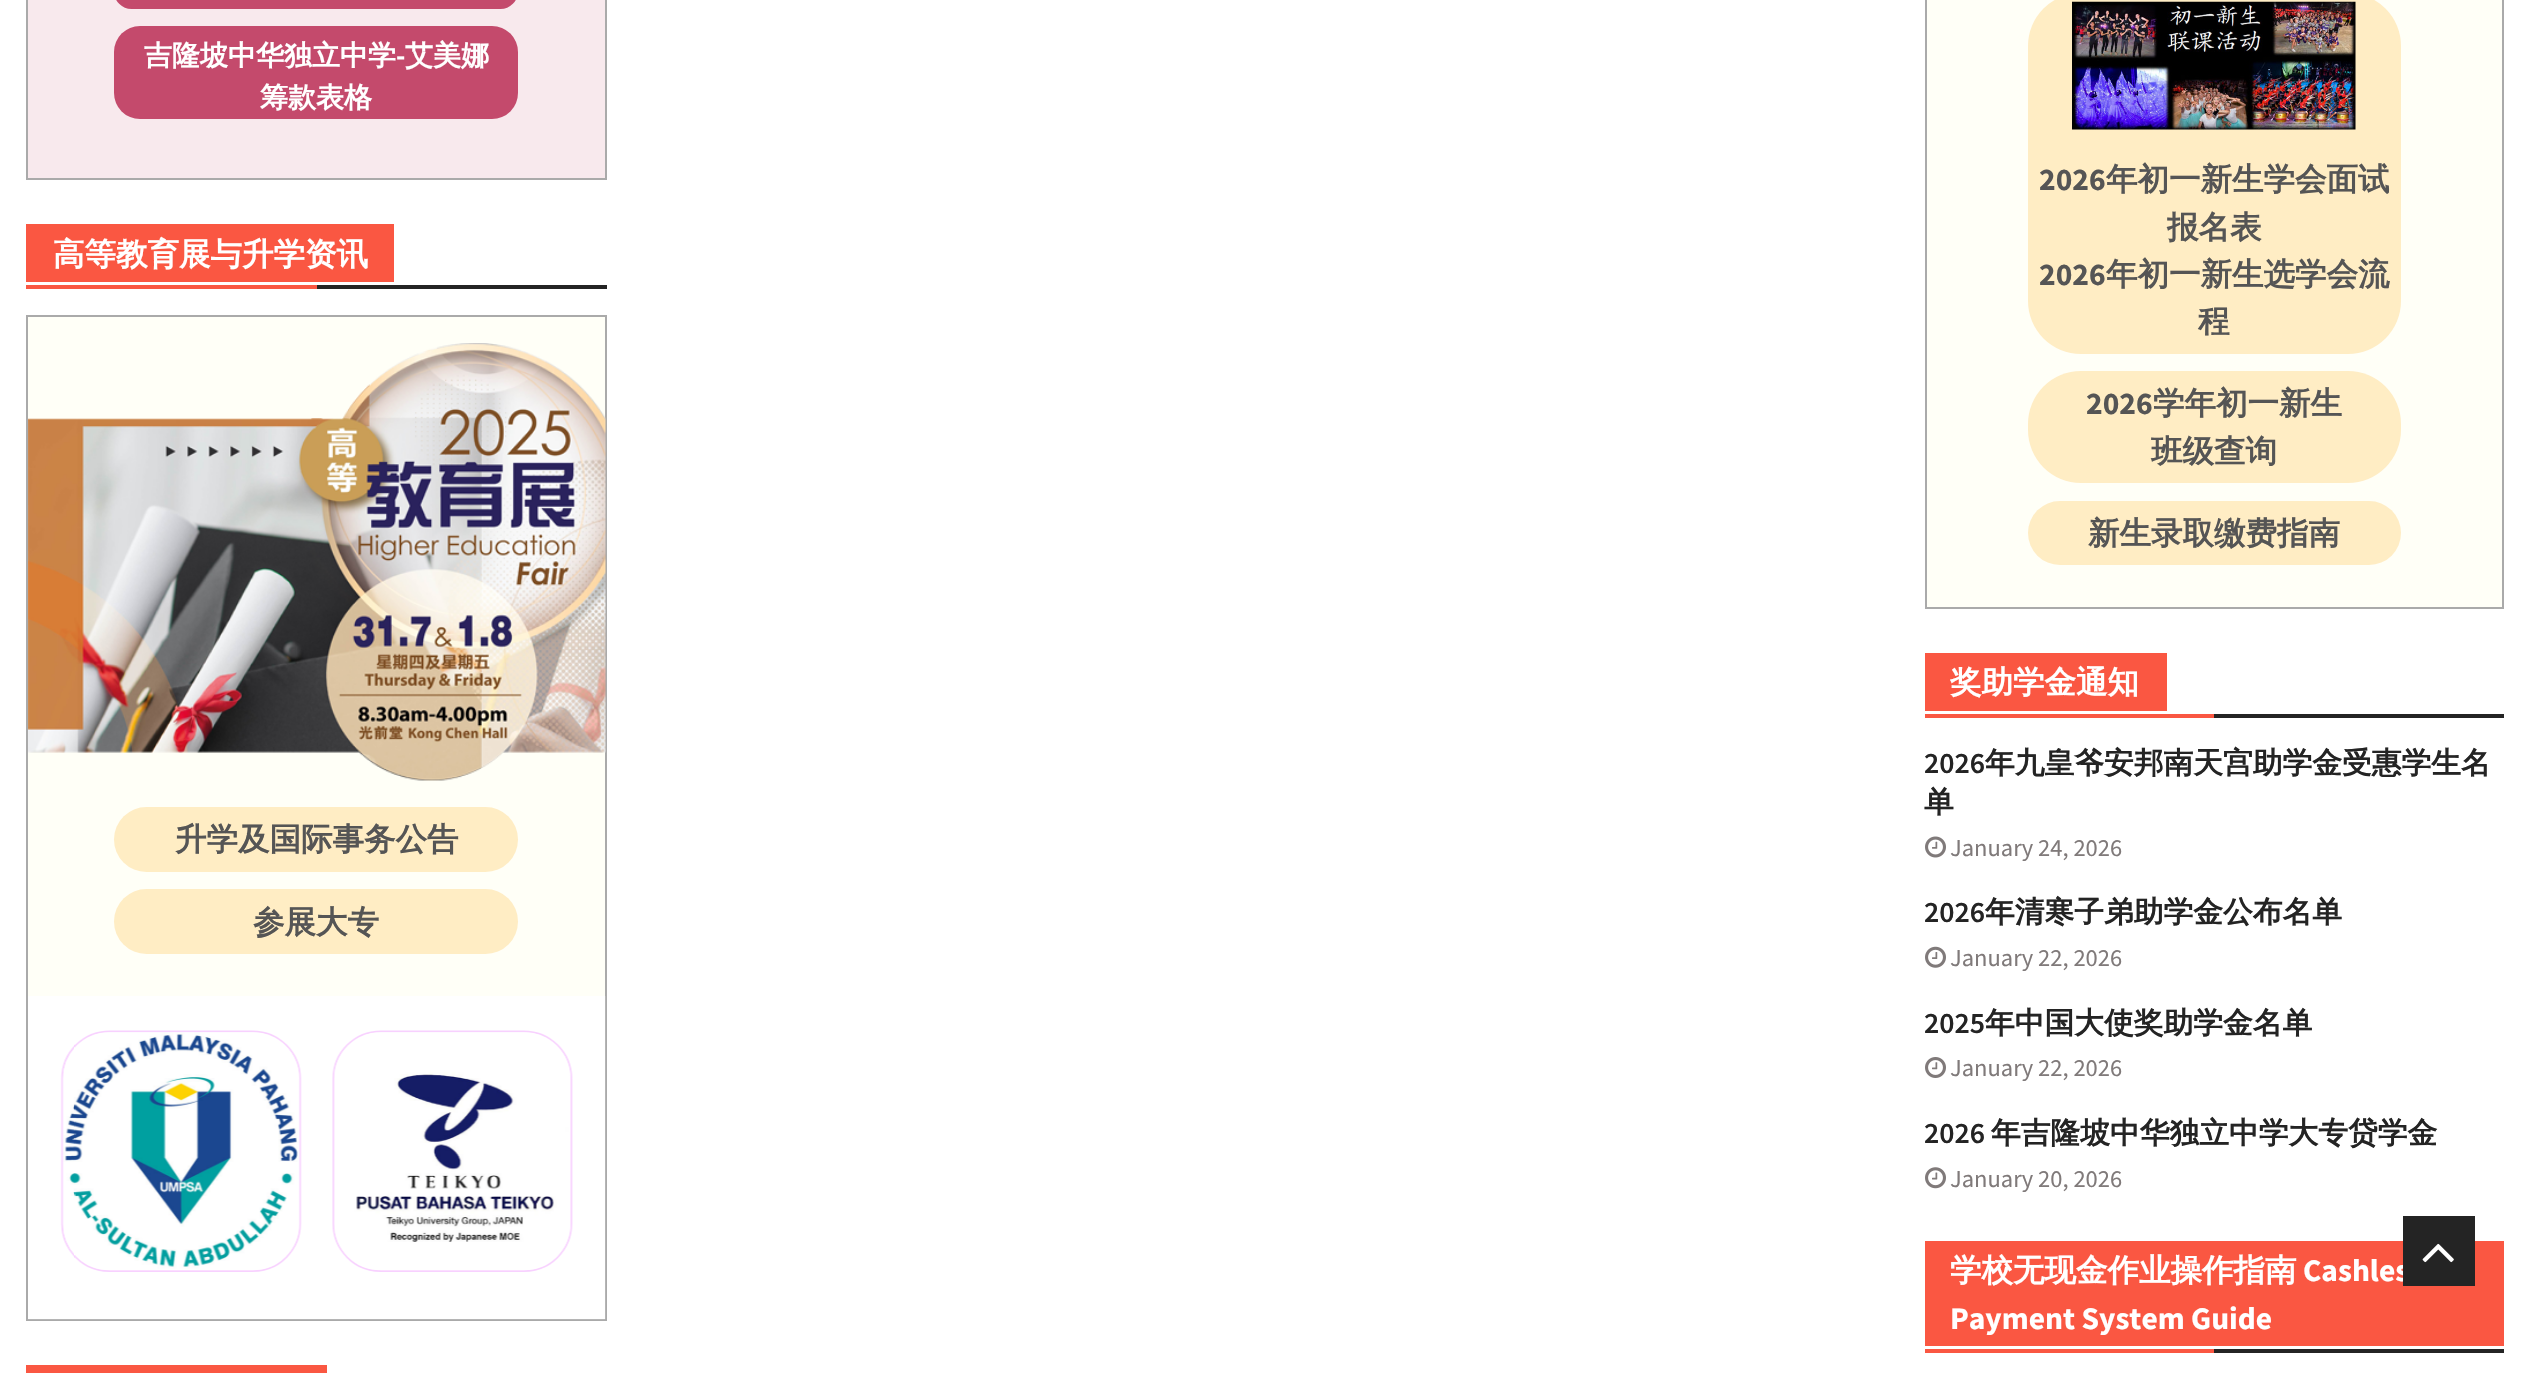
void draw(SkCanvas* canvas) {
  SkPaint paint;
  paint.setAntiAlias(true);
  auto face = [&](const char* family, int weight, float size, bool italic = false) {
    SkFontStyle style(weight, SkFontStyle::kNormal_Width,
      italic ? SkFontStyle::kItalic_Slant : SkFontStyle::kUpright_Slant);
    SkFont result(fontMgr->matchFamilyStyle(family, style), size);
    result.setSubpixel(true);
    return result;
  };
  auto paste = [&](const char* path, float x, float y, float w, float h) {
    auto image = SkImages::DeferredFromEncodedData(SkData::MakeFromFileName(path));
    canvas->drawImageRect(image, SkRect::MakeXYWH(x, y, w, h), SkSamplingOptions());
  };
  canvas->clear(0xffffffff);
  paint.setColor(0xfff8e9ed);
  canvas->drawRect(SkRect::MakeXYWH(27, -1, 579, 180), paint);
  paint.setStroke(true);
  paint.setStrokeWidth(2);
  paint.setColor(0xffaaaaaa);
  canvas->drawRect(SkRect::MakeXYWH(27, -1, 579, 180), paint);
  paint.setStroke(false);
  paint.setColor(0xffc44a6c);
  canvas->drawRoundRect(SkRect::MakeXYWH(114, -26, 404, 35), 26, 26, paint);
  canvas->drawRoundRect(SkRect::MakeXYWH(114, 26, 404, 93), 26, 26, paint);
  {
    const struct { float x, y, w, h; SkColor color; } items[] = {
      {317, 285, 290, 4, 0xff242424},
      {26, 224, 368, 58, 0xfffa5742},
      {26, 285, 291, 4, 0xfffa5742},
      {28, 317, 577, 679, 0xfffffff7},
    };
    for (auto [x, y, w, h, color] : items) {
      paint.setColor(color);
      canvas->drawRect(SkRect::MakeXYWH(x, y, w, h), paint);
    }
  }
  paint.setStroke(true);
  paint.setColor(0xffaaaaaa);
  canvas->drawRect(SkRect::MakeXYWH(27, 316, 579, 1004), paint);
  paste("img/1.png", 28, 343, 578, 438);
  paint.setStroke(false);
  paint.setColor(0xffffedc4);
  canvas->drawRoundRect(SkRect::MakeXYWH(114, 807, 404, 65), 32.5f, 32.5f, paint);
  canvas->drawRoundRect(SkRect::MakeXYWH(114, 889, 404, 65), 32.5f, 32.5f, paint);
  paste("img/2.png", 28, 996, 578, 324);
  paint.setColor(0xfffa5742);
  canvas->drawRect(SkRect::MakeXYWH(26, 1365, 301, 8), paint);
  paint.setColor(0xfffffff7);
  canvas->drawRect(SkRect::MakeXYWH(1926, -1, 577, 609), paint);
  paint.setStroke(true);
  paint.setColor(0xffaaaaaa);
  canvas->drawRect(SkRect::MakeXYWH(1926, -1, 577, 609), paint);
  paint.setStroke(false);
  paint.setColor(0xffffedc4);
  canvas->drawRoundRect(SkRect::MakeXYWH(2028, -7, 373, 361), 53, 53, paint);
  paste("img/3.png", 2072, 1, 284, 129);
  canvas->drawRoundRect(SkRect::MakeXYWH(2028, 371, 373, 112), 53, 53, paint);
  canvas->drawRoundRect(SkRect::MakeXYWH(2028, 501, 373, 64), 32, 32, paint);
  {
    const struct { float x, y, w, h; SkColor color; } items[] = {
      {2214, 714, 290, 4, 0xff242424},
      {1925, 653, 242, 58, 0xfffa5742},
      {1925, 714, 289, 4, 0xfffa5742},
    };
    for (auto [x, y, w, h, color] : items) {
      paint.setColor(color);
      canvas->drawRect(SkRect::MakeXYWH(x, y, w, h), paint);
    }
  }
  paste("img/4.png", 1925, 836, 21, 22);
  paste("img/5.png", 1925, 946, 21, 22);
  paste("img/6.png", 1925, 1057, 21, 21);
  paste("img/7.png", 1925, 1167, 21, 22);
  {
    const struct { float x, y, w, h; SkColor color; } items[] = {
      {2214, 1349, 290, 4, 0xff242424},
      {1925, 1241, 579, 105, 0xfffa5742},
      {1925, 1349, 289, 4, 0xfffa5742},
    };
    for (auto [x, y, w, h, color] : items) {
      paint.setColor(color);
      canvas->drawRect(SkRect::MakeXYWH(x, y, w, h), paint);
    }
  }
  auto f0 = face("WenQuanYi Zen Hei", 700, 28);
  paint.setColor(0xffffffff);
  canvas->drawString("吉隆坡中华独立中学", 144, 65, f0, paint);
  auto f1 = face("Source Sans Pro", 700, 28);
  canvas->drawString("-", 396, 65, f1, paint);
  canvas->drawString("艾美娜", 405, 65, f0, paint);
  canvas->drawString("筹款表格", 260, 107, f0, paint);
  auto f2 = face("WenQuanYi Zen Hei", 700, 31.5f);
  canvas->drawString("高等教育展与升学资讯", 53, 265, f2, paint);
  paint.setColor(0xff555555);
  canvas->drawString("升学及国际事务公告", 175, 850, f2, paint);
  canvas->drawString("参展大专", 253, 933, f2, paint);
  auto f3 = face("Source Sans Pro", 700, 31.5f);
  canvas->drawString("2026", 2039, 190, f3, paint);
  canvas->drawString("年初一新生学会面试", 2106, 190, f2, paint);
  canvas->drawString("报名表", 2167, 238, f2, paint);
  canvas->drawString("2026", 2039, 285, f3, paint);
  canvas->drawString("年初一新生选学会流", 2106, 285, f2, paint);
  canvas->drawString("程", 2198, 332, f2, paint);
  canvas->drawString("2026", 2086, 414, f3, paint);
  {
    const struct { const char* s; float x, y; } items[] = {
      {"学年初一新生", 2153, 414},
      {"班级查询", 2151, 462},
      {"新生录取缴费指南", 2088, 544},
    };
    for (auto [s, x, y] : items) {
      canvas->drawString(s, x, y, f2, paint);
    }
  }
  paint.setColor(0xffffffff);
  canvas->drawString("奖助学金通知", 1950, 693, f2, paint);
  auto f4 = face("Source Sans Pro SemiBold", 600, 29.75f);
  paint.setColor(0xff242424);
  canvas->drawString("2026", 1924, 773, f4, paint);
  auto f5 = face("WenQuanYi Zen Hei", 700, 29.75f);
  canvas->drawString("年九皇爷安邦南天宫助学金受惠学生名", 1985, 773, f5, paint);
  canvas->drawString("单", 1924, 812, f5, paint);
  auto f6 = face("Source Sans Pro", 400, 24.5f);
  paint.setColor(0xff807a7a);
  canvas->drawString("January 24, 2026", 1950, 856, f6, paint);
  paint.setColor(0xff242424);
  canvas->drawString("2026", 1924, 922, f4, paint);
  canvas->drawString("年清寒子弟助学金公布名单", 1985, 922, f5, paint);
  paint.setColor(0xff807a7a);
  canvas->drawString("January 22, 2026", 1950, 966, f6, paint);
  paint.setColor(0xff242424);
  canvas->drawString("2025", 1924, 1033, f4, paint);
  canvas->drawString("年中国大使奖助学金名单", 1985, 1033, f5, paint);
  paint.setColor(0xff807a7a);
  canvas->drawString("January 22, 2026", 1950, 1076, f6, paint);
  paint.setColor(0xff242424);
  canvas->drawString("2026", 1924, 1143, f4, paint);
  canvas->drawString("年吉隆坡中华独立中学大专贷学金", 1991, 1143, f5, paint);
  paint.setColor(0xff807a7a);
  canvas->drawString("January 20, 2026", 1950, 1187, f6, paint);
  paint.setColor(0xffffffff);
  canvas->drawString("学校无现金作业操作指南", 1950, 1281, f2, paint);
  canvas->drawString("Cashles", 2303, 1281, f3, paint);
  canvas->drawString("Payment System Guide", 1950, 1329, f3, paint);
  paint.setColor(0xff242424);
  canvas->drawRect(SkRect::MakeXYWH(2403, 1216, 72, 70), paint);
  paste("img/8.png", 2422, 1243, 32, 20);
}
